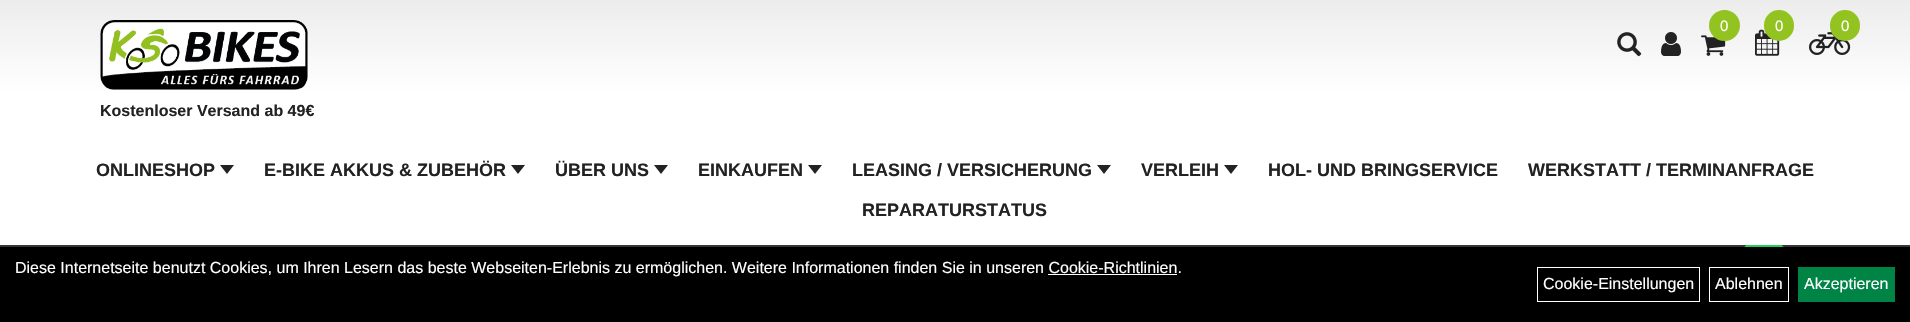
void draw(SkCanvas* canvas) {
  SkPaint paint;
  paint.setAntiAlias(true);
  auto face = [&](const char* family, int weight, float size, bool italic = false) {
    SkFontStyle style(weight, SkFontStyle::kNormal_Width,
      italic ? SkFontStyle::kItalic_Slant : SkFontStyle::kUpright_Slant);
    SkFont result(fontMgr->matchFamilyStyle(family, style), size);
    result.setSubpixel(true);
    return result;
  };
  auto paste = [&](const char* path, float x, float y, float w, float h) {
    auto image = SkImages::DeferredFromEncodedData(SkData::MakeFromFileName(path));
    canvas->drawImageRect(image, SkRect::MakeXYWH(x, y, w, h), SkSamplingOptions());
  };
  auto shape = [&](const char* data, bool evenOdd = false) {
    SkPath result = *SkParsePath::FromSVGString(data);
    if (evenOdd) result.setFillType(SkPathFillType::kEvenOdd);
    return result;
  };
  canvas->clear(0xff363638);
  paint.setColor(0x33000000);
  paint.setMaskFilter(SkMaskFilter::MakeBlur(kNormal_SkBlurStyle, 2.5f));
  canvas->drawRoundRect(SkRect::MakeXYWH(1738, 238, 52, 52), 26, 26, paint);
  paint.setMaskFilter(nullptr);
  paint.setColor(0xff22ce5a);
  canvas->drawCircle(1764, 264, 26, paint);
  {
    const SkColor colors[] = {0xffececec, 0xffffffff};
    const float stops[] = {0, 0.38f};
    const SkPoint ends[] = {{955, 0}, {955, 245}};
    paint.setShader(SkGradientShader::MakeLinear(ends, colors, stops, 2, SkTileMode::kClamp));
    paint.setAlpha(255);
  }
  canvas->drawRect(SkRect::MakeXYWH(0, 0, 1910, 245), paint);
  paste("img/1.png", 1701, 35, 25, 21);
  paint.setShader(nullptr);
  paint.setColor(0xff92c320);
  canvas->drawCircle(1724.5f, 25.5f, 15.5f, paint);
  paste("img/2.png", 1755, 29, 25, 27);
  canvas->drawRoundRect(SkRect::MakeXYWH(1764, 10, 30, 31), 15, 15, paint);
  paste("img/3.png", 1809, 32, 42, 23);
  canvas->drawRoundRect(SkRect::MakeXYWH(1830, 10, 30, 31), 15, 15, paint);
  paste("img/4.png", 1617, 32, 25, 25);
  paste("img/5.png", 1661, 32, 20, 24);
  paste("img/6.png", 100, 20, 208, 70);
  paint.setColor(0xff222222);
  canvas->drawPath(shape("M220 165H234L227 174Z"), paint);
  canvas->drawPath(shape("M511 165H525L518 174Z"), paint);
  canvas->drawPath(shape("M654 165H668L661 174Z"), paint);
  canvas->drawPath(shape("M808 165H822L815 174Z"), paint);
  canvas->drawPath(shape("M1097 165H1111L1104 174Z"), paint);
  canvas->drawPath(shape("M1224 165H1238L1231 174Z"), paint);
  paint.setColor(0xff000000);
  canvas->drawRect(SkRect::MakeXYWH(0, 247, 1910, 75), paint);
  paint.setColor(0xffffffff);
  canvas->drawRect(SkRect::MakeXYWH(1048, 274, 129, 1), paint);
  paint.setStroke(true);
  paint.setStrokeWidth(1);
  canvas->drawRect(SkRect::MakeXYWH(1537.5f, 267.5f, 162, 34), paint);
  canvas->drawRect(SkRect::MakeXYWH(1709.5f, 267.5f, 79, 34), paint);
  paint.setStroke(false);
  paint.setColor(0xff008446);
  canvas->drawRect(SkRect::MakeXYWH(1798, 267, 97, 35), paint);
  auto f0 = face("Liberation Sans", 400, 15);
  paint.setColor(0xffffffff);
  {
    const struct { const char* s; float x, y; } items[] = {
      {"0", 1720, 31},
      {"0", 1775, 31},
      {"0", 1841, 31},
    };
    for (auto [s, x, y] : items) {
      canvas->drawString(s, x, y, f0, paint);
    }
  }
  auto f1 = face("Liberation Sans", 700, 16);
  paint.setColor(0xff222222);
  canvas->drawString("Kostenloser Versand ab 49€", 100, 116, f1, paint);
  auto f2 = face("Liberation Sans", 700, 18);
  {
    const struct { const char* s; float x, y; } items[] = {
      {"ONLINESHOP", 96, 176},
      {"E-BIKE AKKUS & ZUBEHÖR", 264, 176},
      {"ÜBER UNS", 555, 176},
      {"EINKAUFEN", 698, 176},
      {"LEASING / VERSICHERUNG", 852, 176},
      {"VERLEIH", 1141, 176},
      {"HOL- UND BRINGSERVICE", 1268, 176},
      {"WERKSTATT / TERMINANFRAGE", 1528, 176},
      {"REPARATURSTATUS", 862, 216},
    };
    for (auto [s, x, y] : items) {
      canvas->drawString(s, x, y, f2, paint);
    }
  }
  auto f3 = face("Liberation Sans", 400, 16);
  paint.setColor(0xffffffff);
  {
    const struct { const char* s; float x, y; } items[] = {
      {"Diese Internetseite benutzt Cookies, um Ihren Lesern das beste Webseiten-Erlebnis zu ermöglichen. Weitere Informationen finden Sie in unseren Cookie-Richtlinien.", 15, 273},
      {"Cookie-Einstellungen", 1543, 289},
      {"Ablehnen", 1715, 289},
      {"Akzeptieren", 1804, 289},
    };
    for (auto [s, x, y] : items) {
      canvas->drawString(s, x, y, f3, paint);
    }
  }
}
